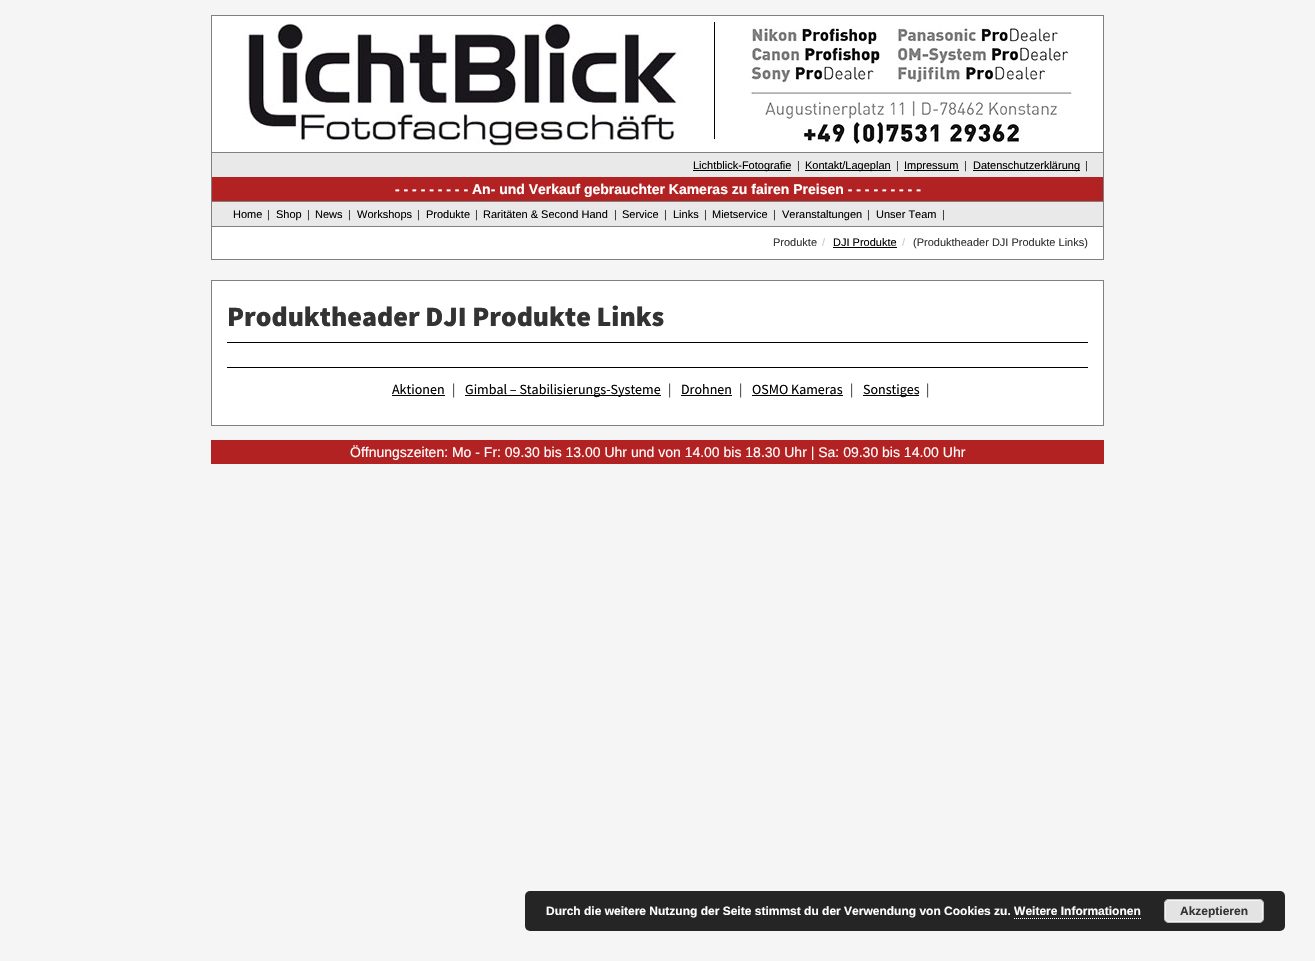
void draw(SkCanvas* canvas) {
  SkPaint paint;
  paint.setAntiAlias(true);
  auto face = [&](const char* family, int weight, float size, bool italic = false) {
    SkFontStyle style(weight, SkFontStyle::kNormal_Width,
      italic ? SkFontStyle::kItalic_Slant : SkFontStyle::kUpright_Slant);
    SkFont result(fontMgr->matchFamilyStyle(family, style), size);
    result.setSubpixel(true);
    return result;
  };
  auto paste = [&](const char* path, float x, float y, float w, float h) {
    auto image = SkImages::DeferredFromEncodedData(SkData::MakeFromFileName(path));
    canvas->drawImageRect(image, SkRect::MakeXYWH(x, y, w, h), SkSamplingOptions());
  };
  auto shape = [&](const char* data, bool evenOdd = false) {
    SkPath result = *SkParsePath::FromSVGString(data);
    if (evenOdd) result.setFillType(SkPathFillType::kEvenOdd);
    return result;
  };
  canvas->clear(0xfff5f5f5);
  paint.setColor(0xffffffff);
  canvas->drawRect(SkRect::MakeXYWH(212, 16, 891, 136), paint);
  paint.setStroke(true);
  paint.setStrokeWidth(1);
  paint.setColor(0xff808080);
  canvas->drawRect(SkRect::MakeXYWH(211.5f, 15.5f, 892, 186), paint);
  paste("img/1.png", 243, 22, 440, 130);
  paste("img/2.png", 710, 16, 8, 128);
  paste("img/3.png", 750, 25, 322, 119);
  paint.setStroke(false);
  {
    const struct { float x, y, w, h; SkColor color; } items[] = {
      {212, 153, 891, 24, 0xffe9e9e9},
      {212, 152, 891, 1, 0xff808080},
      {693, 170, 98, 1, 0xff000000},
      {805, 170, 86, 1, 0xff000000},
      {904, 170, 55, 1, 0xff000000},
      {973, 170, 107, 1, 0xff000000},
      {212, 177, 891, 24, 0xffb22222},
      {212, 202, 891, 24, 0xffe9e9e9},
      {1103, 202, 1, 24, 0xff808080},
      {211, 202, 1, 24, 0xff808080},
    };
    for (auto [x, y, w, h, color] : items) {
      paint.setColor(color);
      canvas->drawRect(SkRect::MakeXYWH(x, y, w, h), paint);
    }
  }
  paint.setColor(0xffffffff);
  canvas->drawRect(SkRect::MakeXYWH(211.5f, 226.5f, 892, 33), paint);
  paint.setStroke(true);
  paint.setColor(0xff808080);
  canvas->drawRect(SkRect::MakeXYWH(211.5f, 226.5f, 892, 33), paint);
  paint.setStroke(false);
  paint.setColor(0xff000000);
  canvas->drawRect(SkRect::MakeXYWH(833, 247, 64, 1), paint);
  paint.setColor(0xffffffff);
  canvas->drawRect(SkRect::MakeXYWH(211.5f, 280.5f, 892, 145), paint);
  paint.setStroke(true);
  paint.setColor(0xff808080);
  canvas->drawRect(SkRect::MakeXYWH(211.5f, 280.5f, 892, 145), paint);
  paint.setStroke(false);
  {
    const struct { float x, y, w, h; SkColor color; } items[] = {
      {227, 342, 861, 1, 0xff000000},
      {227, 367, 861, 1, 0xff000000},
      {392, 395, 53, 1, 0xff000000},
      {465, 395, 196, 1, 0xff000000},
      {681, 395, 51, 1, 0xff000000},
      {752, 395, 91, 1, 0xff000000},
      {863, 395, 56, 1, 0xff000000},
      {211, 440, 893, 24, 0xffb22222},
    };
    for (auto [x, y, w, h, color] : items) {
      paint.setColor(color);
      canvas->drawRect(SkRect::MakeXYWH(x, y, w, h), paint);
    }
  }
  paint.setColor(0xff252525);
  canvas->drawRoundRect(SkRect::MakeXYWH(525, 891, 760, 40), 5, 5, paint);
  paint.setColor(0xffe3e3e3);
  canvas->drawRoundRect(SkRect::MakeXYWH(1164, 899, 100, 24), 5, 5, paint);
  paint.setStroke(true);
  paint.setColor(0xfff6f6f6);
  canvas->drawRoundRect(SkRect::MakeXYWH(1165.5f, 900.5f, 97, 21), 3.5f, 3.5f, paint);
  paint.setColor(0xffbbbbbb);
  canvas->drawRoundRect(SkRect::MakeXYWH(1164.5f, 899.5f, 99, 23), 4.5f, 4.5f, paint);
  paint.setColor(0xffffffff);
  paint.setPathEffect(SkDashPathEffect::Make({{1, 1}}, 0));
  canvas->drawPath(shape("M1014 918.5H1141"), paint);
  paint.setPathEffect(nullptr);
  auto f0 = face("Liberation Sans", 400, 11);
  paint.setStroke(false);
  paint.setColor(0xff000000);
  canvas->drawString("Lichtblick-Fotografie", 693, 169, f0, paint);
  paint.setColor(0xff333333);
  canvas->drawString("|", 797, 169, f0, paint);
  paint.setColor(0xff000000);
  canvas->drawString("Kontakt/Lageplan", 805, 169, f0, paint);
  paint.setColor(0xff333333);
  canvas->drawString("|", 896, 169, f0, paint);
  paint.setColor(0xff000000);
  canvas->drawString("Impressum", 904, 169, f0, paint);
  paint.setColor(0xff333333);
  canvas->drawString("|", 964, 169, f0, paint);
  paint.setColor(0xff000000);
  canvas->drawString("Datenschutzerklärung", 973, 169, f0, paint);
  paint.setColor(0xff333333);
  canvas->drawString("|", 1085, 169, f0, paint);
  auto f1 = face("Liberation Sans", 700, 14);
  paint.setColor(0xffffffff);
  canvas->drawString("- - - - - - - - - An- und Verkauf gebrauchter Kameras zu fairen Preisen - - - - - - - - -", 395, 194, f1, paint);
  paint.setColor(0xff000000);
  canvas->drawString("Home", 233, 218, f0, paint);
  paint.setColor(0xff333333);
  canvas->drawString("|", 267, 218, f0, paint);
  paint.setColor(0xff000000);
  canvas->drawString("Shop", 276, 218, f0, paint);
  paint.setColor(0xff333333);
  canvas->drawString("|", 307, 218, f0, paint);
  paint.setColor(0xff000000);
  canvas->drawString("News", 315, 218, f0, paint);
  paint.setColor(0xff333333);
  canvas->drawString("|", 348, 218, f0, paint);
  paint.setColor(0xff000000);
  canvas->drawString("Workshops", 357, 218, f0, paint);
  paint.setColor(0xff333333);
  canvas->drawString("|", 417, 218, f0, paint);
  paint.setColor(0xff000000);
  canvas->drawString("Produkte", 426, 218, f0, paint);
  paint.setColor(0xff333333);
  canvas->drawString("|", 475, 218, f0, paint);
  paint.setColor(0xff000000);
  canvas->drawString("Raritäten & Second Hand", 483, 218, f0, paint);
  paint.setColor(0xff333333);
  canvas->drawString("|", 614, 218, f0, paint);
  paint.setColor(0xff000000);
  canvas->drawString("Service", 622, 218, f0, paint);
  paint.setColor(0xff333333);
  canvas->drawString("|", 664, 218, f0, paint);
  paint.setColor(0xff000000);
  canvas->drawString("Links", 673, 218, f0, paint);
  paint.setColor(0xff333333);
  canvas->drawString("|", 704, 218, f0, paint);
  paint.setColor(0xff000000);
  canvas->drawString("Mietservice", 712, 218, f0, paint);
  paint.setColor(0xff333333);
  canvas->drawString("|", 773, 218, f0, paint);
  paint.setColor(0xff000000);
  canvas->drawString("Veranstaltungen", 782, 218, f0, paint);
  paint.setColor(0xff333333);
  canvas->drawString("|", 867, 218, f0, paint);
  paint.setColor(0xff000000);
  canvas->drawString("Unser Team", 876, 218, f0, paint);
  paint.setColor(0xff333333);
  canvas->drawString("|", 942, 218, f0, paint);
  canvas->drawString("Produkte", 773, 246, f0, paint);
  paint.setColor(0xffcccccc);
  canvas->drawString("/", 822, 246, f0, paint);
  paint.setColor(0xff000000);
  canvas->drawString("DJI Produkte", 833, 246, f0, paint);
  paint.setColor(0xffcccccc);
  canvas->drawString("/", 902, 246, f0, paint);
  paint.setColor(0xff333333);
  canvas->drawString("(Produktheader DJI Produkte Links)", 913, 246, f0, paint);
  auto f2 = face("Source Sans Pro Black", 900, 28);
  canvas->drawString("Produktheader DJI Produkte Links", 227, 326, f2, paint);
  auto f3 = face("Source Sans Pro", 400, 14);
  paint.setColor(0xff000000);
  canvas->drawString("Aktionen", 392, 394, f3, paint);
  paint.setColor(0xff333333);
  canvas->drawString("|", 452, 394, f3, paint);
  paint.setColor(0xff000000);
  canvas->drawString("Gimbal – Stabilisierungs-Systeme", 465, 394, f3, paint);
  paint.setColor(0xff333333);
  canvas->drawString("|", 668, 394, f3, paint);
  paint.setColor(0xff000000);
  canvas->drawString("Drohnen", 681, 394, f3, paint);
  paint.setColor(0xff333333);
  canvas->drawString("|", 739, 394, f3, paint);
  paint.setColor(0xff000000);
  canvas->drawString("OSMO Kameras", 752, 394, f3, paint);
  paint.setColor(0xff333333);
  canvas->drawString("|", 850, 394, f3, paint);
  paint.setColor(0xff000000);
  canvas->drawString("Sonstiges", 863, 394, f3, paint);
  paint.setColor(0xff333333);
  canvas->drawString("|", 926, 394, f3, paint);
  auto f4 = face("Liberation Sans", 400, 14);
  paint.setColor(0xffffffff);
  canvas->drawString("Öffnungszeiten: Mo - Fr: 09.30 bis 13.00 Uhr und von 14.00 bis 18.30 Uhr | Sa: 09.30 bis 14.00 Uhr", 350, 457, f4, paint);
  auto f5 = face("Liberation Sans", 700, 12);
  canvas->drawString("Durch die weitere Nutzung der Seite stimmst du der Verwendung von Cookies zu. Weitere Informationen", 546, 915, f5, paint);
  paint.setColor(0xff333333);
  canvas->drawString("Akzeptieren", 1180, 915, f5, paint);
}
